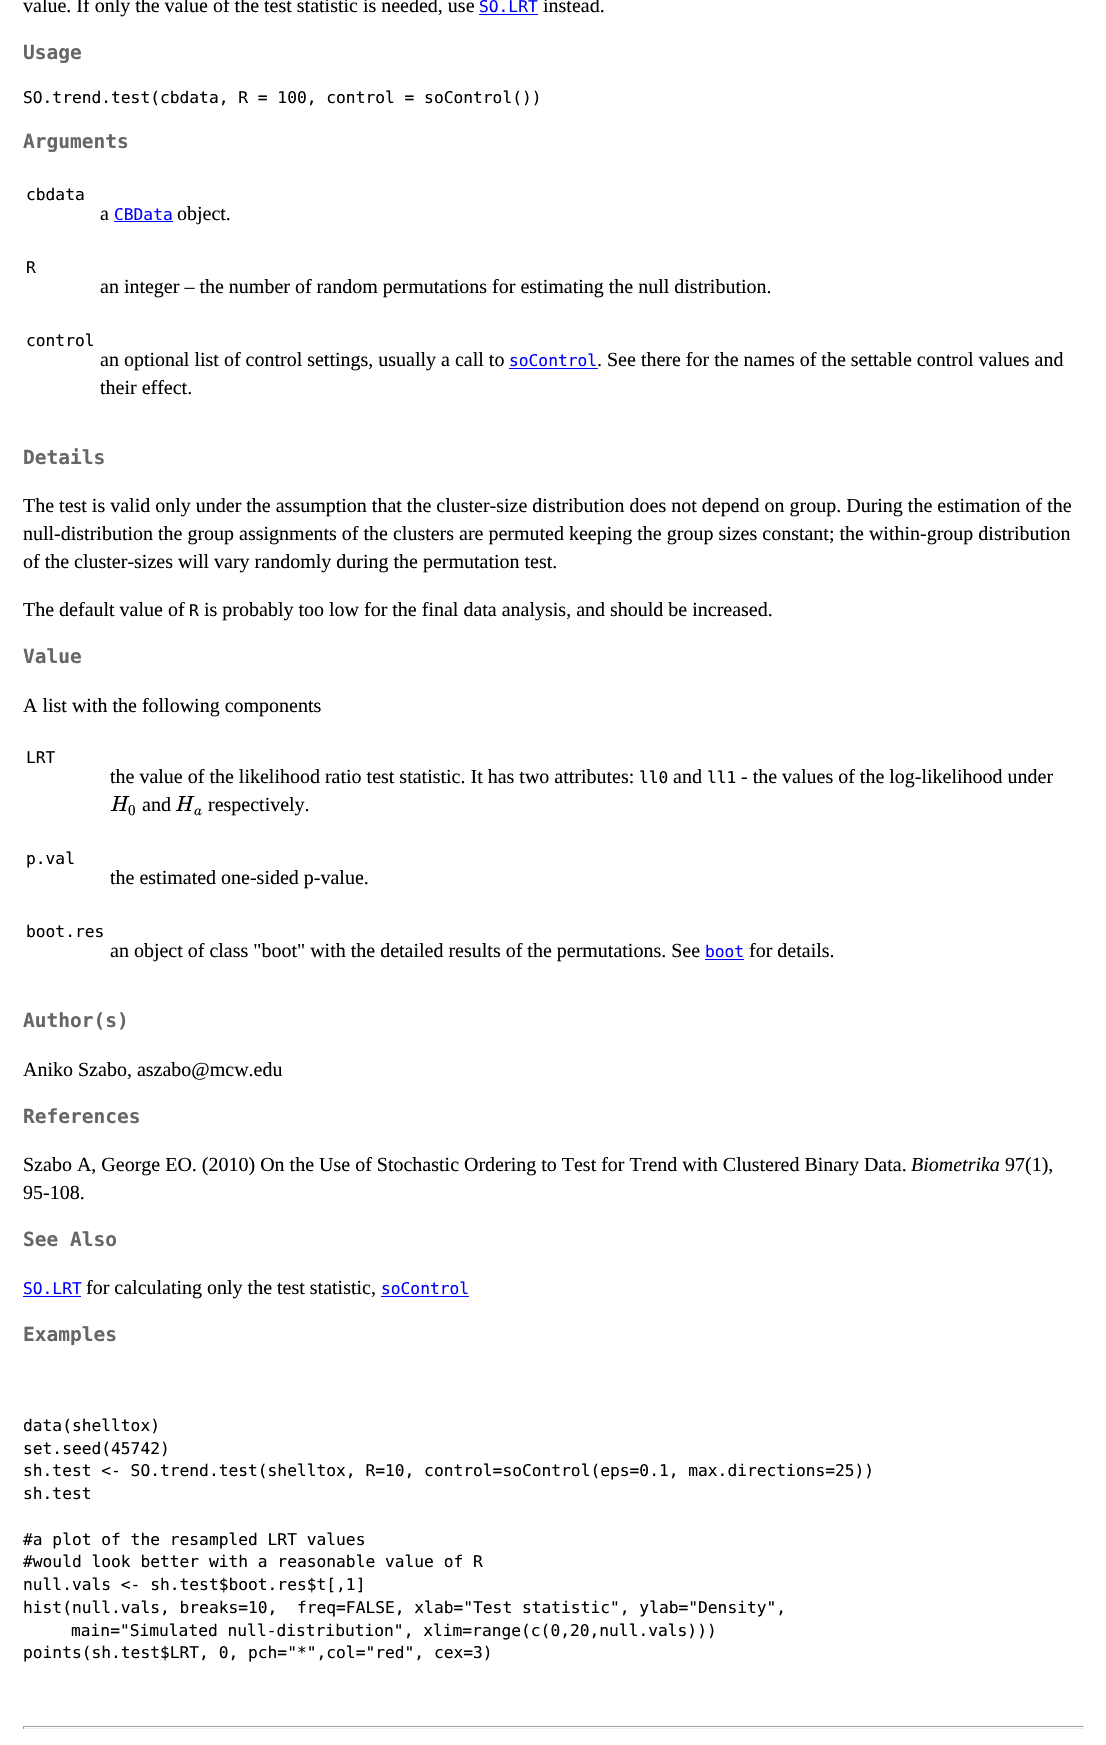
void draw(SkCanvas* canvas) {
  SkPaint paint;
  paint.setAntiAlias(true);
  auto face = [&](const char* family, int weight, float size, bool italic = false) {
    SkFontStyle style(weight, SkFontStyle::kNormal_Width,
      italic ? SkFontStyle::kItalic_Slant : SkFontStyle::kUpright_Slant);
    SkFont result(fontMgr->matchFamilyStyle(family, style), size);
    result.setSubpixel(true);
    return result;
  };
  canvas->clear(0xffffffff);
  {
    const struct { float x, y, w, h; SkColor color; } items[] = {
      {479, 14, 59, 1, 0xff0000ff},
      {114, 221, 59, 1, 0xff0000ff},
      {509, 368, 89, 1, 0xff0000ff},
      {705, 959, 39, 1, 0xff0000ff},
      {23, 1296, 58, 1, 0xff0000ff},
      {381, 1296, 88, 1, 0xff0000ff},
      {23, 1726, 1061, 1, 0xff9f9f9f},
      {1083, 1726, 1, 3, 0xffeeeeee},
      {23, 1728, 1061, 1, 0xffeeeeee},
      {23, 1726, 1, 3, 0xff9f9f9f},
    };
    for (auto [x, y, w, h, color] : items) {
      paint.setColor(color);
      canvas->drawRect(SkRect::MakeXYWH(x, y, w, h), paint);
    }
  }
  auto f0 = face("Liberation Serif", 400, 20);
  paint.setColor(0xff000000);
  canvas->drawString("value. If only the value of the test statistic is needed, use", 23, 12, f0, paint);
  auto f1 = face("DejaVu Sans Mono", 400, 16.25f);
  paint.setColor(0xff0000ff);
  canvas->drawString("SO.LRT", 479, 12, f1, paint);
  paint.setColor(0xff000000);
  canvas->drawString("instead.", 543, 12, f0, paint);
  auto f2 = face("DejaVu Sans Mono", 700, 19.5f);
  paint.setColor(0xff666666);
  canvas->drawString("Usage", 23, 59, f2, paint);
  paint.setColor(0xff000000);
  canvas->drawString("SO.trend.test(cbdata, R = 100, control = soControl())", 23, 103, f1, paint);
  paint.setColor(0xff666666);
  canvas->drawString("Arguments", 23, 148, f2, paint);
  paint.setColor(0xff000000);
  canvas->drawString("cbdata", 26, 200, f1, paint);
  canvas->drawString("a", 100, 220, f0, paint);
  paint.setColor(0xff0000ff);
  canvas->drawString("CBData", 114, 220, f1, paint);
  paint.setColor(0xff000000);
  canvas->drawString("object.", 177, 220, f0, paint);
  canvas->drawString("R", 26, 273, f1, paint);
  canvas->drawString("an integer – the number of random permutations for estimating the null distribution.", 100, 293, f0, paint);
  canvas->drawString("control", 26, 346, f1, paint);
  canvas->drawString("an optional list of control settings, usually a call to", 100, 366, f0, paint);
  paint.setColor(0xff0000ff);
  canvas->drawString("soControl", 509, 366, f1, paint);
  paint.setColor(0xff000000);
  canvas->drawString(". See there for the names of the settable control values and", 597, 366, f0, paint);
  canvas->drawString("their effect.", 100, 394, f0, paint);
  paint.setColor(0xff666666);
  canvas->drawString("Details", 23, 464, f2, paint);
  paint.setColor(0xff000000);
  {
    const struct { const char* s; float x, y; } items[] = {
      {"The test is valid only under the assumption that the cluster-size distribution does not depend on group. During the estimation of the", 23, 512},
      {"null-distribution the group assignments of the clusters are permuted keeping the group sizes constant; the within-group distribution", 23, 540},
      {"of the cluster-sizes will vary randomly during the permutation test.", 23, 568},
      {"The default value of", 23, 616},
    };
    for (auto [s, x, y] : items) {
      canvas->drawString(s, x, y, f0, paint);
    }
  }
  canvas->drawString("R", 189, 616, f1, paint);
  canvas->drawString("is probably too low for the final data analysis, and should be increased.", 204, 616, f0, paint);
  paint.setColor(0xff666666);
  canvas->drawString("Value", 23, 663, f2, paint);
  paint.setColor(0xff000000);
  canvas->drawString("A list with the following components", 23, 712, f0, paint);
  canvas->drawString("LRT", 26, 763, f1, paint);
  canvas->drawString("the value of the likelihood ratio test statistic. It has two attributes:", 110, 783, f0, paint);
  canvas->drawString("ll0", 639, 783, f1, paint);
  canvas->drawString("and", 673, 783, f0, paint);
  canvas->drawString("ll1", 707, 783, f1, paint);
  canvas->drawString("- the values of the log-likelihood under", 741, 783, f0, paint);
  auto f3 = face("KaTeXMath", 400, 22, true);
  canvas->drawString("H", 110, 811, f3, paint);
  auto f4 = face("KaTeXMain", 400, 15);
  canvas->drawString("0", 128, 815, f4, paint);
  canvas->drawString("and", 142, 811, f0, paint);
  canvas->drawString("H", 175, 811, f3, paint);
  auto f5 = face("KaTeXMath", 400, 15, true);
  canvas->drawString("a", 194, 815, f5, paint);
  canvas->drawString("respectively.", 208, 811, f0, paint);
  canvas->drawString("p.val", 26, 864, f1, paint);
  canvas->drawString("the estimated one-sided p-value.", 110, 884, f0, paint);
  canvas->drawString("boot.res", 26, 937, f1, paint);
  canvas->drawString("an object of class \"boot\" with the detailed results of the permutations. See", 110, 957, f0, paint);
  paint.setColor(0xff0000ff);
  canvas->drawString("boot", 705, 957, f1, paint);
  paint.setColor(0xff000000);
  canvas->drawString("for details.", 749, 957, f0, paint);
  paint.setColor(0xff666666);
  canvas->drawString("Author(s)", 23, 1027, f2, paint);
  paint.setColor(0xff000000);
  canvas->drawString("Aniko Szabo, aszabo@mcw.edu", 23, 1076, f0, paint);
  paint.setColor(0xff666666);
  canvas->drawString("References", 23, 1123, f2, paint);
  paint.setColor(0xff000000);
  canvas->drawString("Szabo A, George EO. (2010) On the Use of Stochastic Ordering to Test for Trend with Clustered Binary Data.", 23, 1171, f0, paint);
  auto f6 = face("Liberation Serif", 400, 20, true);
  canvas->drawString("Biometrika", 911, 1171, f6, paint);
  canvas->drawString("97(1),", 1005, 1171, f0, paint);
  canvas->drawString("95-108.", 23, 1199, f0, paint);
  paint.setColor(0xff666666);
  canvas->drawString("See Also", 23, 1246, f2, paint);
  paint.setColor(0xff0000ff);
  canvas->drawString("SO.LRT", 23, 1294, f1, paint);
  paint.setColor(0xff000000);
  canvas->drawString("for calculating only the test statistic,", 86, 1294, f0, paint);
  paint.setColor(0xff0000ff);
  canvas->drawString("soControl", 381, 1294, f1, paint);
  paint.setColor(0xff666666);
  canvas->drawString("Examples", 23, 1341, f2, paint);
  paint.setColor(0xff000000);
  {
    const struct { const char* s; float x, y; } items[] = {
      {"data(shelltox)", 23, 1431},
      {"set.seed(45742)", 23, 1454},
      {"sh.test <- SO.trend.test(shelltox, R=10, control=soControl(eps=0.1, max.directions=25))", 23, 1476},
      {"sh.test", 23, 1499},
      {"#a plot of the resampled LRT values", 23, 1545},
      {"#would look better with a reasonable value of R", 23, 1567},
      {"null.vals <- sh.test$boot.res$t[,1]", 23, 1590},
      {"hist(null.vals, breaks=10,  freq=FALSE, xlab=\"Test statistic\", ylab=\"Density\",", 23, 1613},
      {"main=\"Simulated null-distribution\", xlim=range(c(0,20,null.vals)))", 71, 1636},
      {"points(sh.test$LRT, 0, pch=\"*\",col=\"red\", cex=3)", 23, 1658},
    };
    for (auto [s, x, y] : items) {
      canvas->drawString(s, x, y, f1, paint);
    }
  }
}
